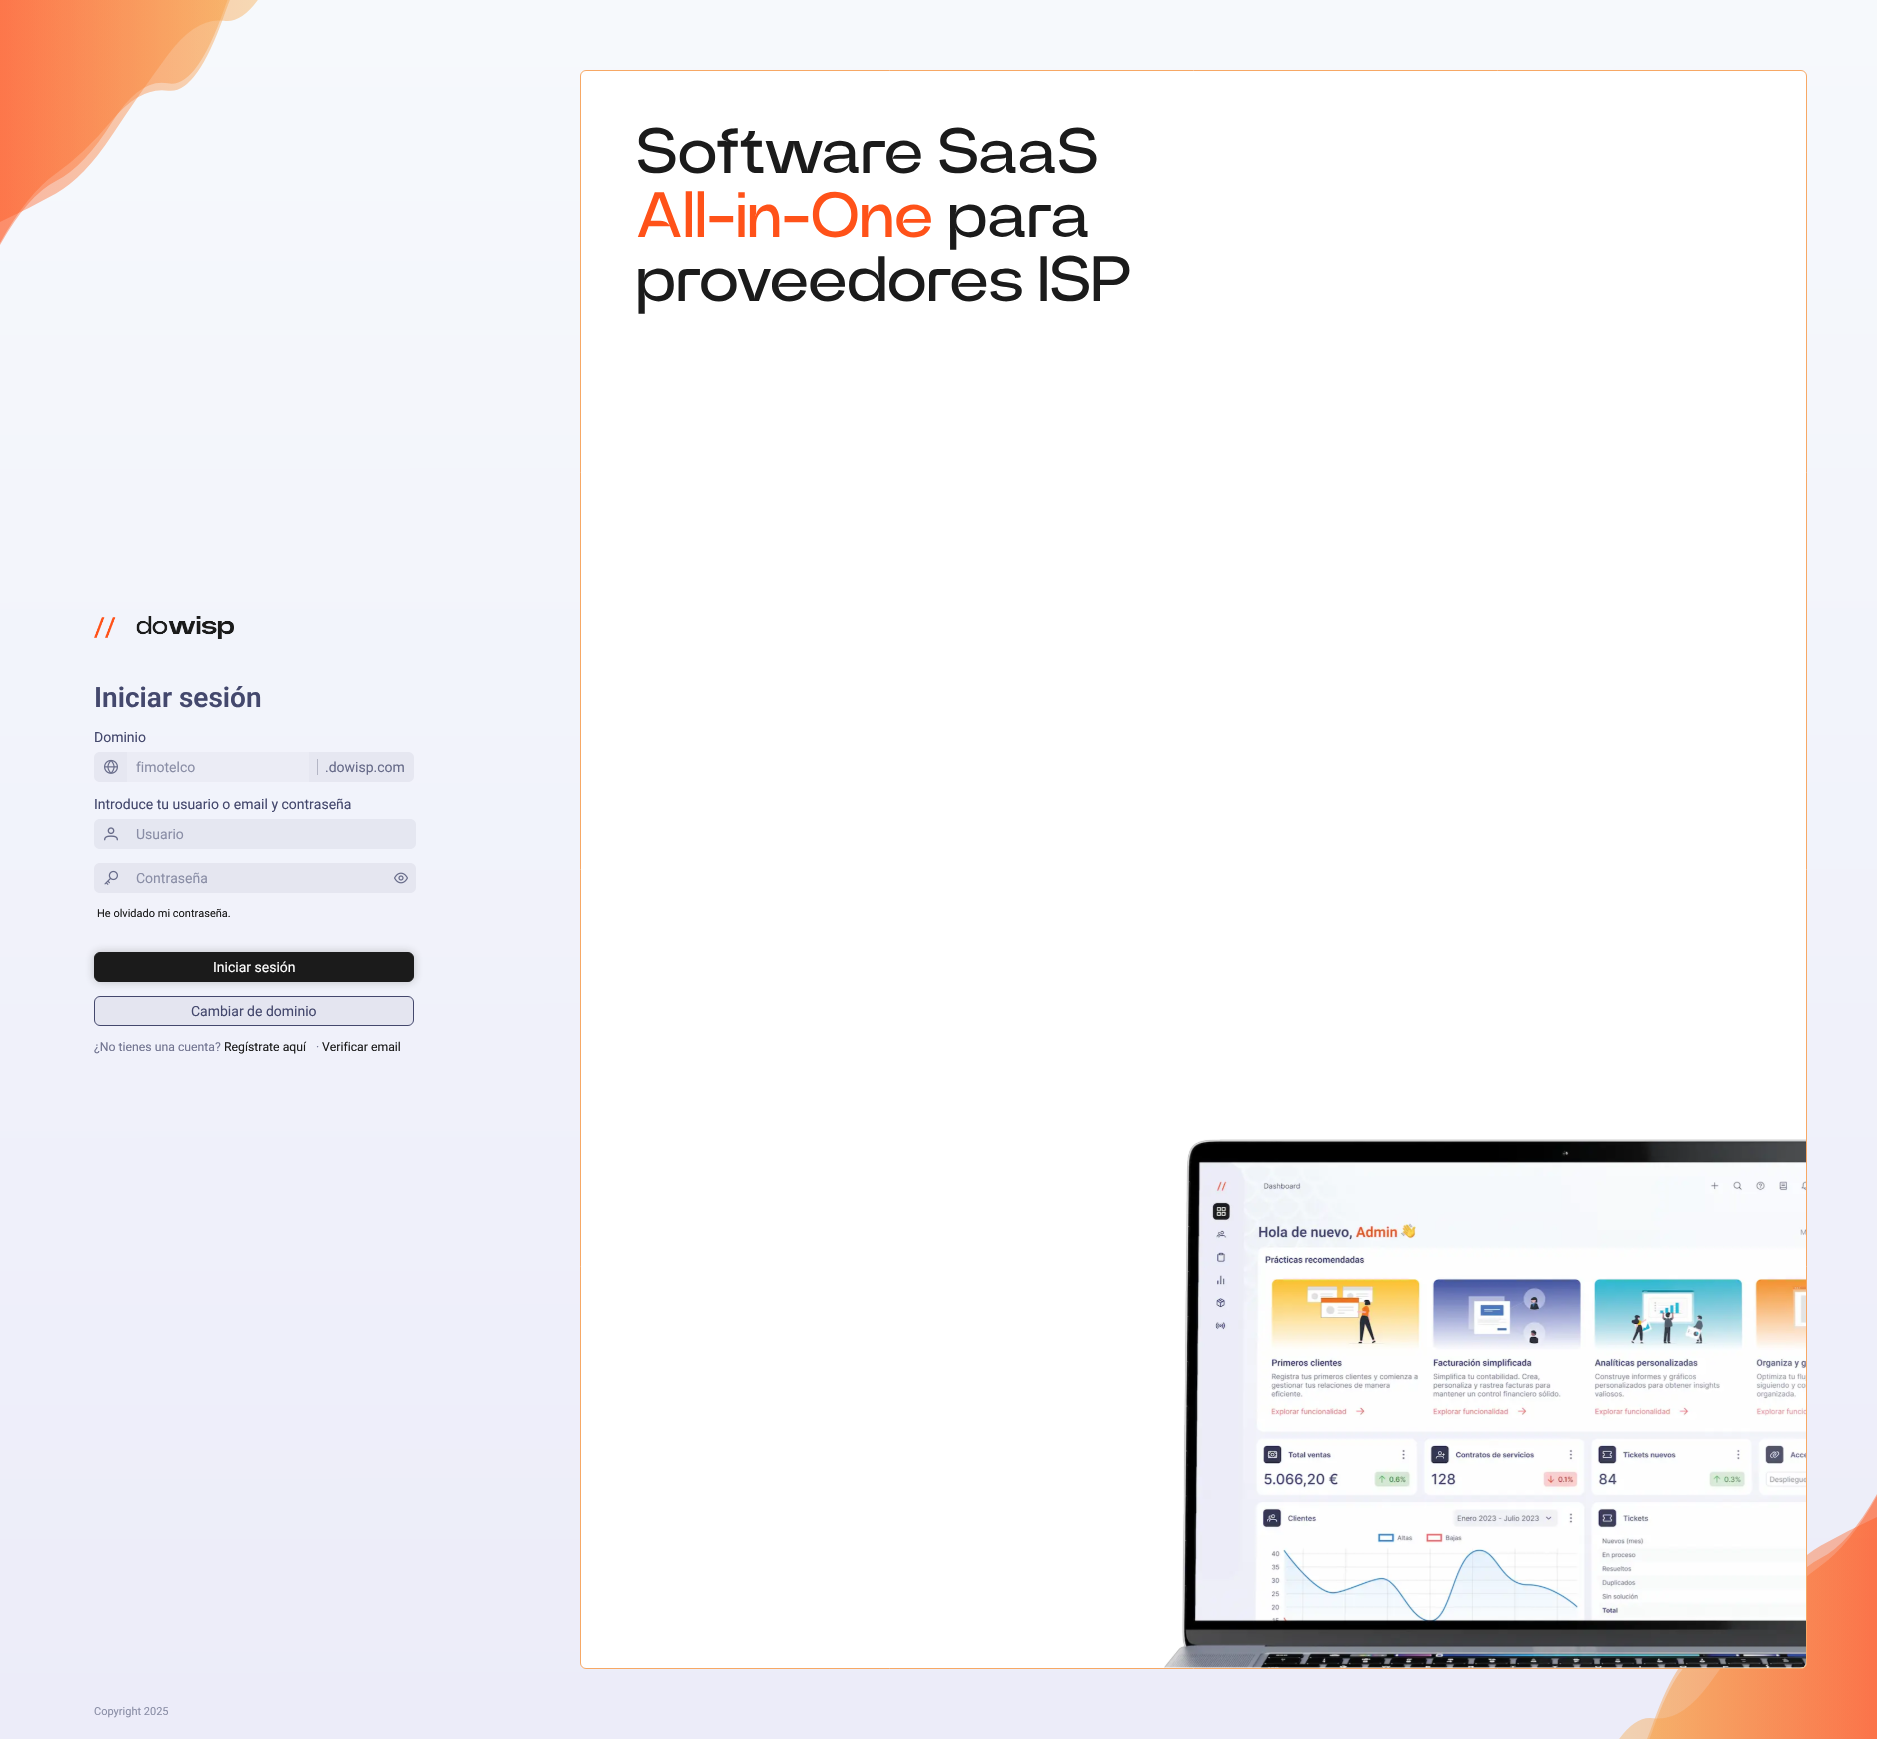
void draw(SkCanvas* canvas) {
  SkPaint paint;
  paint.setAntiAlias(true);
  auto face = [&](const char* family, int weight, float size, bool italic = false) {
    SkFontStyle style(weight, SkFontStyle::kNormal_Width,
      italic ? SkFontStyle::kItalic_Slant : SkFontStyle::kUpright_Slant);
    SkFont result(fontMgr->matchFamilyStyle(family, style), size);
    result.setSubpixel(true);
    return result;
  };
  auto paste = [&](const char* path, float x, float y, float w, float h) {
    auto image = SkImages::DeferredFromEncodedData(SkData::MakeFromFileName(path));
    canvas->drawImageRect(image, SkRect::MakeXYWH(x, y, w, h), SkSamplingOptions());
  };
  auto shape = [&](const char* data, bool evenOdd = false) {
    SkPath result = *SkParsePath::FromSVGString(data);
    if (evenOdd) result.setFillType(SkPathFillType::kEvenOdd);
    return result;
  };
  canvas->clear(0xffffffff);
  {
    const SkColor colors[] = {0xfff6f9fc, 0xffececf9};
    const float stops[] = {0, 1};
    const SkPoint ends[] = {{938, 0}, {939, 1739}};
    paint.setShader(SkGradientShader::MakeLinear(ends, colors, stops, 2, SkTileMode::kClamp));
    paint.setAlpha(255);
  }
  canvas->drawRect(SkRect::MakeXYWH(0, 0, 1877, 1739), paint);
  paste("img/1.png", 0, 0, 258, 245);
  paste("img/2.png", 94, 616, 140, 23);
  paint.setShader(nullptr);
  paint.setColor(0xffe6e7f1);
  canvas->drawPath(shape("M100 752H127V782H100C96.5 782 94 779.5 94 776V758C94 754.5 96.5 752 100 752Z"), paint);
  paste("img/3.png", 104, 759, 14, 15);
  paint.setColor(0xffebecf5);
  canvas->drawRect(SkRect::MakeXYWH(127, 752, 182, 30), paint);
  paint.setColor(0xffe6e7f1);
  canvas->drawPath(shape("M309 752H408C411.5 752 414 754.5 414 758V776C414 779.5 411.5 782 408 782H309Z"), paint);
  paint.setColor(0xffb4b6c5);
  canvas->drawRect(SkRect::MakeXYWH(317, 759, 1, 16), paint);
  paint.setColor(0xffe5e7f1);
  canvas->drawPath(shape("M100 819H127V849H100C96.5 849 94 846.5 94 843V825C94 821.5 96.5 819 100 819Z"), paint);
  paste("img/4.png", 104, 827, 14, 14);
  canvas->drawPath(shape("M127 819H410C413.5 819 416 821.5 416 825V843C416 846.5 413.5 849 410 849H127Z"), paint);
  paint.setColor(0xffe5e6f0);
  canvas->drawPath(shape("M100 863H127V893H100C96.5 893 94 890.5 94 887V869C94 865.5 96.5 863 100 863Z"), paint);
  paste("img/5.png", 104, 870, 14, 15);
  canvas->drawPath(shape("M127 863H410C413.5 863 416 865.5 416 869V887C416 890.5 413.5 893 410 893H127Z"), paint);
  paste("img/6.png", 394, 872, 14, 12);
  paint.setColor(0x401b1b1b);
  paint.setMaskFilter(SkMaskFilter::MakeBlur(kNormal_SkBlurStyle, 5));
  canvas->drawRoundRect(SkRect::MakeXYWH(94, 952, 320, 30), 6, 6, paint);
  paint.setMaskFilter(nullptr);
  paint.setColor(0xff1b1b1b);
  canvas->drawRoundRect(SkRect::MakeXYWH(94.5f, 952.5f, 319, 29), 5.5f, 5.5f, paint);
  paint.setStroke(true);
  paint.setStrokeWidth(1);
  canvas->drawRoundRect(SkRect::MakeXYWH(94.5f, 952.5f, 319, 29), 5.5f, 5.5f, paint);
  paint.setStroke(false);
  paint.setColor(0xffe4e5f0);
  canvas->drawRoundRect(SkRect::MakeXYWH(94.5f, 996.5f, 319, 29), 5.5f, 5.5f, paint);
  paint.setStroke(true);
  paint.setColor(0xff44486d);
  canvas->drawRoundRect(SkRect::MakeXYWH(94.5f, 996.5f, 319, 29), 5.5f, 5.5f, paint);
  paste("img/9.png", 1619, 1494, 258, 245);
  paint.setStroke(false);
  paint.setColor(0xffffffff);
  canvas->drawRoundRect(SkRect::MakeXYWH(580.5f, 70.5f, 1226, 1598), 5.5f, 5.5f, paint);
  paint.setStroke(true);
  paint.setColor(0xfff7a865);
  canvas->drawRoundRect(SkRect::MakeXYWH(580.5f, 70.5f, 1226, 1598), 5.5f, 5.5f, paint);
  paste("img/7.png", 637, 127, 493, 187);
  paste("img/8.png", 1164, 1139, 642, 529);
  auto f0 = face("Roboto", 600, 28);
  paint.setStroke(false);
  paint.setColor(0xff44486d);
  canvas->drawString("Iniciar sesión", 94, 707, f0, paint);
  auto f1 = face("Roboto", 400, 14);
  canvas->drawString("Dominio", 94, 742, f1, paint);
  paint.setColor(0xff8a8ea6);
  canvas->drawString("fimotelco", 136, 772, f1, paint);
  paint.setColor(0xff676b89);
  canvas->drawString(".dowisp.com", 325, 772, f1, paint);
  paint.setColor(0xff44486d);
  canvas->drawString("Introduce tu usuario o email y contraseña", 94, 809, f1, paint);
  paint.setColor(0xff8a8ea6);
  canvas->drawString("Usuario", 136, 839, f1, paint);
  canvas->drawString("Contraseña", 136, 883, f1, paint);
  auto f2 = face("Roboto", 400, 11);
  paint.setColor(0xff1b1b1b);
  canvas->drawString("He olvidado mi contraseña.", 97, 917, f2, paint);
  paint.setColor(0xffffffff);
  canvas->drawString("Iniciar sesión", 213, 972, f1, paint);
  paint.setColor(0xff44486d);
  canvas->drawString("Cambiar de dominio", 191, 1016, f1, paint);
  auto f3 = face("Roboto", 400, 12.25f);
  paint.setColor(0xff717490);
  canvas->drawString("¿No tienes una cuenta?", 94, 1051, f3, paint);
  paint.setColor(0xff1b1b1b);
  canvas->drawString("Regístrate aquí", 224, 1051, f3, paint);
  paint.setColor(0xff717490);
  canvas->drawString("·", 316, 1051, f3, paint);
  paint.setColor(0xff1b1b1b);
  canvas->drawString("Verificar email", 322, 1051, f3, paint);
  paint.setColor(0xff8a8ea6);
  canvas->drawString("Copyright 2025", 94, 1715, f2, paint);
}
